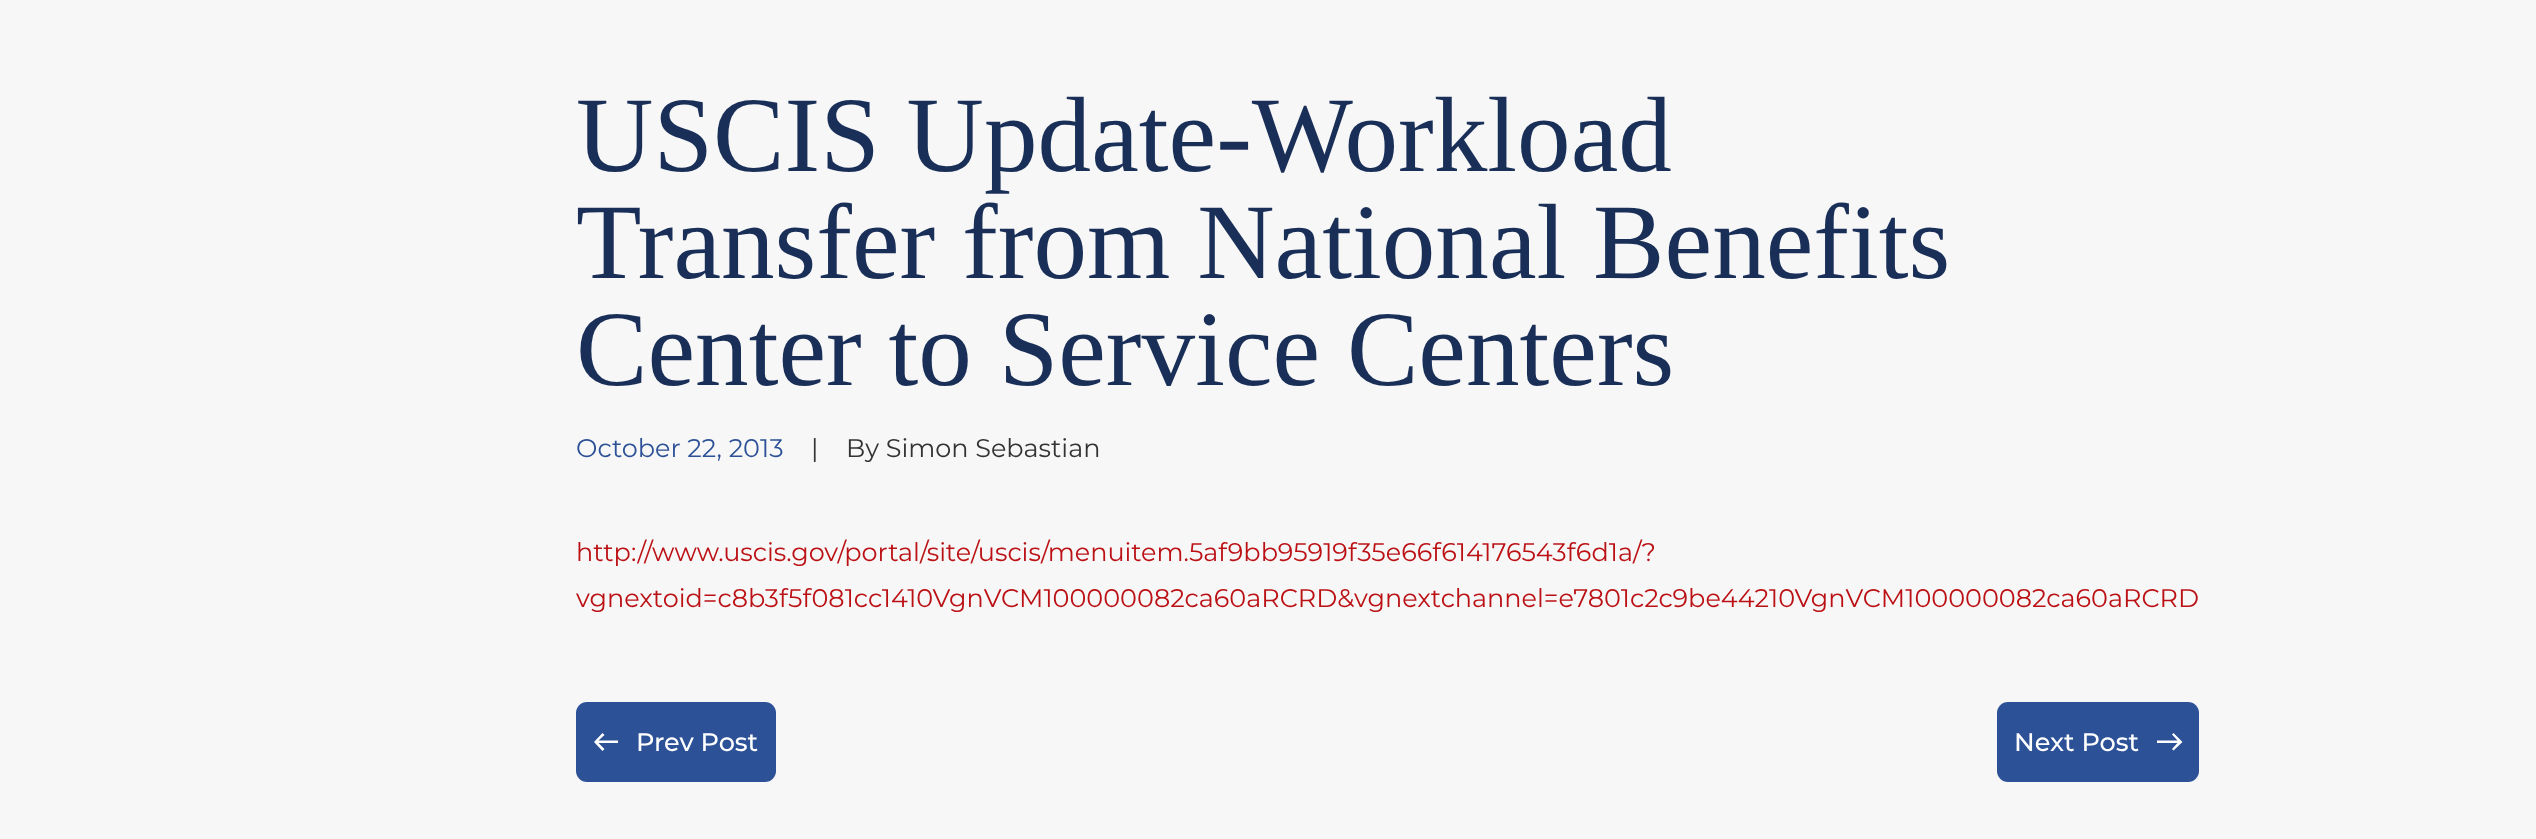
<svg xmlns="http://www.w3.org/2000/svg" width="2536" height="839">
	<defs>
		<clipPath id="clip1"><rect x="593" y="729" width="25" height="26" /></clipPath>
	</defs>
	<rect width="100%" height="100%" fill="#F7F7F7" />
	<g font-family="Liberation Serif" font-size="107.2" fill="#192F58">
		<text x="576" y="171">USCIS Update-Workload</text>
		<text x="576" y="278">Transfer from National Benefits</text>
		<text x="576" y="385">Center to Service Centers</text>
	</g>
	<text x="576" y="457" font-family="Montserrat" font-size="25.5" fill="#2C5196">October 22, 2013</text>
	<g font-family="Montserrat" font-size="25.5" fill="#333333">
		<text x="811" y="457">|</text>
		<text x="846" y="457">By Simon Sebastian</text>
	</g>
	<g font-family="Montserrat" font-size="25.5" fill="#BB1014">
		<text x="576" y="561">http://www.uscis.gov/portal/site/uscis/menuitem.5af9bb95919f35e66f614176543f6d1a/?</text>
		<text x="576" y="607">vgnextoid=c8b3f5f081cc1410VgnVCM100000082ca60aRCRD&amp;vgnextchannel=e7801c2c9be44210VgnVCM100000082ca60aRCRD</text>
	</g>
	<rect x="576" y="702" width="200" height="80" rx="11" fill="#2C5196" />
	<g clip-path="url(#clip1)">
		<path d="M602.5 751L604.5 749L598.5 743H619.5V740.5H598.5L604.5 735L602.5 733L594 742Z" fill="#FFFFFF" />
	</g>
	<text x="636" y="751" font-family="Montserrat" font-size="25.5" font-weight="500" fill="#FFFFFF">Prev Post</text>
	<rect x="1997" y="702" width="202" height="80" rx="11" fill="#2C5196" />
	<text x="2014" y="751" font-family="Montserrat" font-size="25.5" font-weight="500" fill="#FFFFFF">Next Post</text>
	<path d="M2173.5 733L2172 734.5L2177.5 740.5H2157V743H2177.5L2172 749L2173.5 750.5L2182.5 742Z" fill="#FFFFFF" />
</svg>
